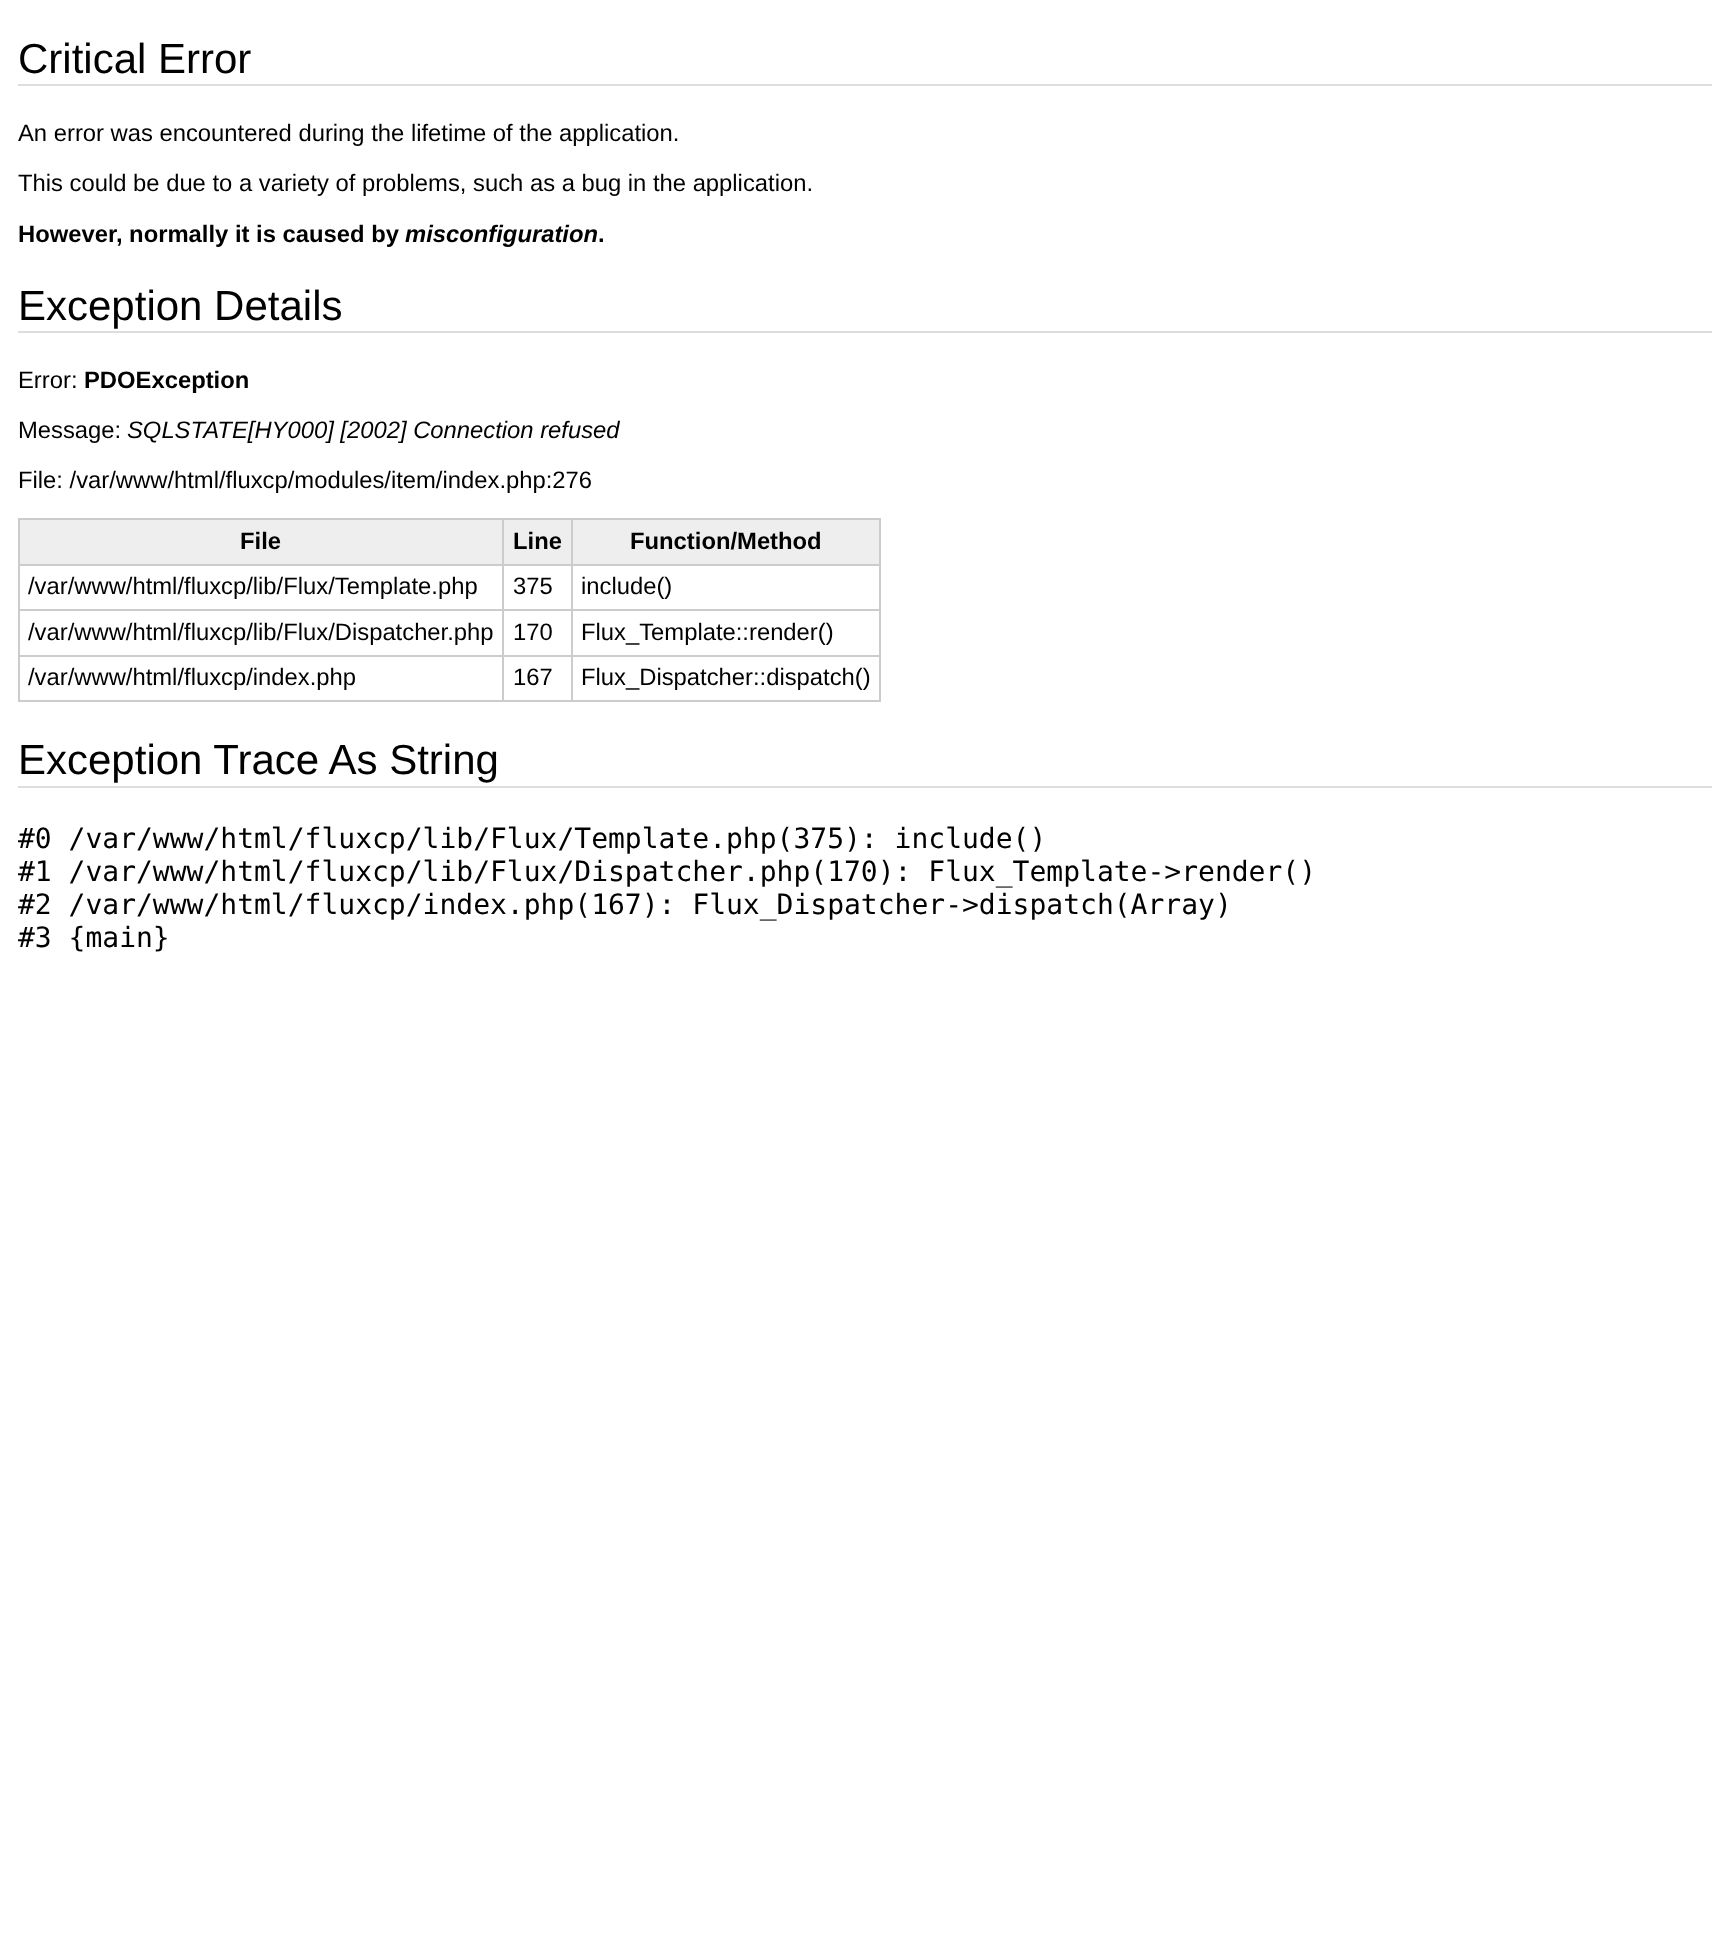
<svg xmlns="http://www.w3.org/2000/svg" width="1728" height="1944">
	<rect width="100%" height="100%" fill="#FFFFFF" />
	<rect x="18" y="84" width="1694" height="2" fill="#DDDDDD" />
	<text x="18" y="73" font-family="Liberation Sans" font-size="42" fill="#000000">Critical Error</text>
	<g font-family="Liberation Sans" font-size="23.8" fill="#000000">
		<text x="18" y="141">An error was encountered during the lifetime of the application.</text>
		<text x="18" y="191">This could be due to a variety of problems, such as a bug in the application.</text>
	</g>
	<text x="18" y="242" font-family="Liberation Sans" font-size="23.8" font-weight="700" fill="#000000">However, normally it is caused by</text>
	<text x="405" y="242" font-family="Liberation Sans" font-size="23.8" font-weight="700" font-style="italic" fill="#000000">misconfiguration</text>
	<text x="598" y="242" font-family="Liberation Sans" font-size="23.8" font-weight="700" fill="#000000">.</text>
	<rect x="18" y="331" width="1694" height="2" fill="#DDDDDD" />
	<text x="18" y="320" font-family="Liberation Sans" font-size="42" fill="#000000">Exception Details</text>
	<text x="18" y="388" font-family="Liberation Sans" font-size="23.8" fill="#000000">Error:</text>
	<text x="84" y="388" font-family="Liberation Sans" font-size="23.8" font-weight="700" fill="#000000">PDOException</text>
	<text x="18" y="438" font-family="Liberation Sans" font-size="23.8" fill="#000000">Message:</text>
	<text x="127" y="438" font-family="Liberation Sans" font-size="23.8" font-style="italic" fill="#000000">SQLSTATE[HY000] [2002] Connection refused</text>
	<text x="18" y="488" font-family="Liberation Sans" font-size="23.8" fill="#000000">File: /var/www/html/fluxcp/modules/item/index.php:276</text>
	<rect x="20" y="520" width="482" height="44" fill="#EEEEEE" />
	<rect x="571" y="518" width="309" height="2" fill="#CCCCCC" />
	<rect x="571" y="564" width="309" height="2" fill="#CCCCCC" />
	<rect x="571" y="609" width="309" height="2" fill="#CCCCCC" />
	<rect x="571" y="655" width="309" height="2" fill="#CCCCCC" />
	<rect x="879" y="655" width="2" height="47" fill="#CCCCCC" />
	<rect x="571" y="700" width="309" height="2" fill="#CCCCCC" />
	<rect x="571" y="655" width="2" height="47" fill="#CCCCCC" />
	<rect x="502" y="655" width="70" height="2" fill="#CCCCCC" />
	<rect x="571" y="609" width="2" height="47" fill="#CCCCCC" />
	<rect x="502" y="609" width="70" height="2" fill="#CCCCCC" />
	<rect x="571" y="564" width="2" height="47" fill="#CCCCCC" />
	<rect x="502" y="564" width="70" height="2" fill="#CCCCCC" />
	<rect x="571" y="518" width="2" height="47" fill="#CCCCCC" />
	<rect x="502" y="518" width="70" height="2" fill="#CCCCCC" />
	<rect x="502" y="700" width="70" height="2" fill="#CCCCCC" />
	<rect x="502" y="655" width="2" height="47" fill="#CCCCCC" />
	<rect x="18" y="655" width="486" height="2" fill="#CCCCCC" />
	<rect x="502" y="609" width="2" height="47" fill="#CCCCCC" />
	<rect x="18" y="609" width="486" height="2" fill="#CCCCCC" />
	<rect x="502" y="564" width="2" height="47" fill="#CCCCCC" />
	<rect x="18" y="564" width="486" height="2" fill="#CCCCCC" />
	<rect x="502" y="518" width="2" height="47" fill="#CCCCCC" />
	<rect x="18" y="518" width="486" height="2" fill="#CCCCCC" />
	<rect x="18" y="700" width="486" height="2" fill="#CCCCCC" />
	<rect x="18" y="655" width="2" height="47" fill="#CCCCCC" />
	<rect x="18" y="609" width="2" height="47" fill="#CCCCCC" />
	<rect x="18" y="564" width="2" height="47" fill="#CCCCCC" />
	<rect x="18" y="518" width="2" height="47" fill="#CCCCCC" />
	<text x="240" y="549" font-family="Liberation Sans" font-size="23.8" font-weight="700" fill="#000000">File</text>
	<rect x="504" y="520" width="67" height="44" fill="#EEEEEE" />
	<text x="513" y="549" font-family="Liberation Sans" font-size="23.8" font-weight="700" fill="#000000">Line</text>
	<rect x="573" y="520" width="306" height="44" fill="#EEEEEE" />
	<rect x="879" y="609" width="2" height="47" fill="#CCCCCC" />
	<rect x="879" y="564" width="2" height="47" fill="#CCCCCC" />
	<rect x="879" y="518" width="2" height="47" fill="#CCCCCC" />
	<text x="630" y="549" font-family="Liberation Sans" font-size="23.8" font-weight="700" fill="#000000">Function/Method</text>
	<g font-family="Liberation Sans" font-size="23.8" fill="#000000">
		<text x="28" y="594">/var/www/html/fluxcp/lib/Flux/Template.php</text>
		<text x="513" y="594">375</text>
		<text x="581" y="594">include()</text>
		<text x="28" y="640">/var/www/html/fluxcp/lib/Flux/Dispatcher.php</text>
		<text x="513" y="640">170</text>
		<text x="581" y="640">Flux_Template::render()</text>
		<text x="28" y="685">/var/www/html/fluxcp/index.php</text>
		<text x="513" y="685">167</text>
		<text x="581" y="685">Flux_Dispatcher::dispatch()</text>
	</g>
	<rect x="18" y="786" width="1694" height="2" fill="#DDDDDD" />
	<text x="18" y="774" font-family="Liberation Sans" font-size="42" fill="#000000">Exception Trace As String</text>
	<g font-family="DejaVu Sans Mono" font-size="28" fill="#000000">
		<text x="18" y="848">#0 /var/www/html/fluxcp/lib/Flux/Template.php(375): include()</text>
		<text x="18" y="881">#1 /var/www/html/fluxcp/lib/Flux/Dispatcher.php(170): Flux_Template-&gt;render()</text>
		<text x="18" y="914">#2 /var/www/html/fluxcp/index.php(167): Flux_Dispatcher-&gt;dispatch(Array)</text>
		<text x="18" y="947">#3 {main}</text>
	</g>
</svg>
